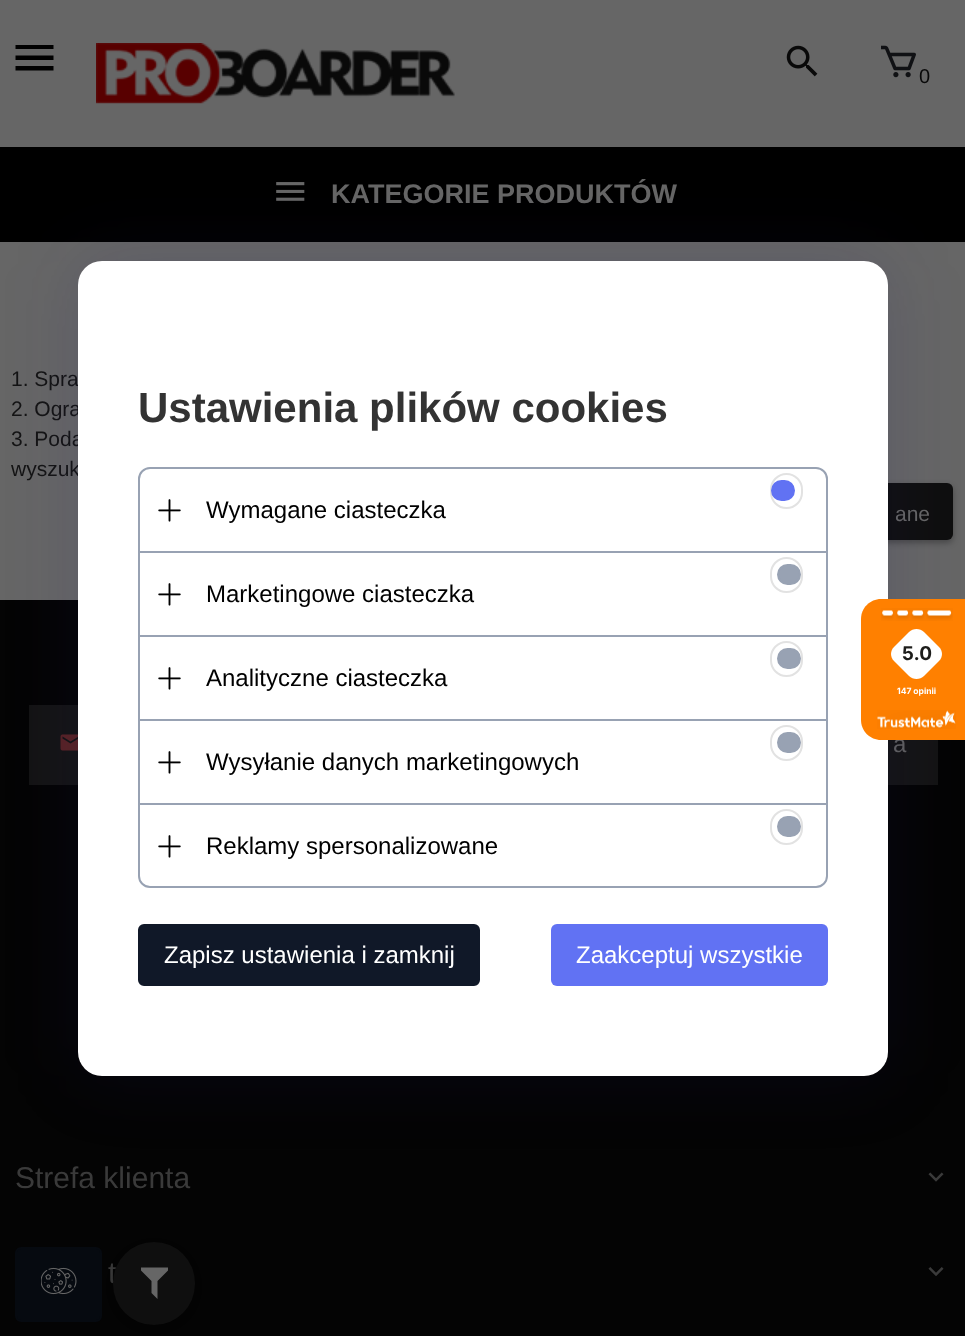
<svg xmlns="http://www.w3.org/2000/svg" width="965" height="1336">
	<rect width="100%" height="100%" fill="#666666" />
	<path d="M15.5 45H53.5V49H15.5ZM15.5 55.5H53.5V60H15.5ZM15.5 66H53.5V70.5H15.5Z" fill="#000000" />
	<image x="96" y="43" width="359" height="61" href="assets/img1.png" />
	<image x="786" y="45" width="32" height="32" href="assets/img2.png" />
	<image x="881" y="45" width="35" height="33" href="assets/img3.png" />
	<text x="919" y="83" font-family="Liberation Sans" font-size="20" fill="#090909">0</text>
	<rect x="0" y="147" width="965" height="95" fill="#000000" />
	<image x="276" y="182" width="29" height="19" href="assets/img4.png" />
	<text x="331" y="203" font-family="Liberation Sans" font-size="27" font-weight="700" fill="#666666">KATEGORIE PRODUKTÓW</text>
	<g font-family="Liberation Sans" font-size="21" fill="#141414">
		<text x="11" y="386">1. Spra</text>
		<text x="11" y="416">2. Ogra</text>
		<text x="11" y="446">3. Poda</text>
		<text x="11" y="476">wyszuk</text>
	</g>
	<rect x="674" y="486" width="279" height="57" rx="6" fill="#000000" fill-opacity="0.3" filter="blur(3px)" />
	<rect x="674" y="483" width="279" height="57" rx="6" fill="#0F0F0F" />
	<text x="895" y="521" font-family="Liberation Sans" font-size="21" fill="#666666">ane</text>
	<rect x="0" y="600" width="965" height="736" fill="#040404" />
	<rect x="29" y="705" width="49" height="80" fill="#141414" />
	<image x="60" y="734" width="18" height="17" href="assets/img5.png" />
	<rect x="888" y="740" width="50" height="45" fill="#141414" />
	<text x="893" y="752" font-family="Liberation Sans" font-size="24" fill="#606060">a</text>
	<text x="15" y="1188" font-family="Liberation Sans" font-size="30" fill="#3A3A3A">Strefa klienta</text>
	<image x="928" y="1172" width="16" height="10" href="assets/img6.png" />
	<text x="108" y="1283" font-family="Liberation Sans" font-size="30" fill="#3A3A3A">t</text>
	<image x="928" y="1267" width="16" height="9" href="assets/img7.png" />
	<rect x="78" y="261" width="810" height="815" rx="24" fill="#211A69" fill-opacity="0.15" filter="blur(36px)" />
	<rect x="78" y="261" width="810" height="815" rx="24" fill="#FFFFFF" />
	<text x="138" y="422" font-family="Liberation Sans" font-size="42" font-weight="700" fill="#333333">Ustawienia plików cookies</text>
	<rect x="139" y="468" width="688" height="419" rx="11" fill="none" stroke="#98A2B3" stroke-width="2" />
	<rect x="771" y="474" width="31" height="34" rx="15.5" fill="none" stroke="#E2E2E2" stroke-width="2" />
	<rect x="772" y="481" width="22" height="19" rx="9.5" fill="#6172F3" stroke="#6172F3" stroke-width="2" />
	<image x="158" y="499" width="23" height="23" href="assets/img8.png" />
	<text x="206" y="518" font-family="Liberation Sans" font-size="24" fill="#000000">Wymagane ciasteczka</text>
	<rect x="140" y="551" width="687" height="2" fill="#98A2B3" />
	<rect x="771" y="558" width="31" height="34" rx="15.5" fill="none" stroke="#E2E2E2" stroke-width="2" />
	<rect x="778" y="565" width="22" height="19" rx="9.5" fill="#98A2B3" stroke="#98A2B3" stroke-width="2" />
	<image x="158" y="583" width="23" height="23" href="assets/img8.png" />
	<text x="206" y="602" font-family="Liberation Sans" font-size="24" fill="#000000">Marketingowe ciasteczka</text>
	<rect x="140" y="635" width="687" height="2" fill="#98A2B3" />
	<rect x="771" y="642" width="31" height="34" rx="15.5" fill="none" stroke="#E2E2E2" stroke-width="2" />
	<rect x="778" y="649" width="22" height="19" rx="9.5" fill="#98A2B3" stroke="#98A2B3" stroke-width="2" />
	<image x="158" y="667" width="23" height="23" href="assets/img8.png" />
	<text x="206" y="686" font-family="Liberation Sans" font-size="24" fill="#000000">Analityczne ciasteczka</text>
	<rect x="140" y="719" width="687" height="2" fill="#98A2B3" />
	<rect x="771" y="726" width="31" height="34" rx="15.5" fill="none" stroke="#E2E2E2" stroke-width="2" />
	<rect x="778" y="733" width="22" height="19" rx="9.5" fill="#98A2B3" stroke="#98A2B3" stroke-width="2" />
	<image x="158" y="751" width="23" height="23" href="assets/img8.png" />
	<text x="206" y="770" font-family="Liberation Sans" font-size="24" fill="#000000">Wysyłanie danych marketingowych</text>
	<rect x="140" y="803" width="687" height="2" fill="#98A2B3" />
	<rect x="771" y="810" width="31" height="34" rx="15.5" fill="none" stroke="#E2E2E2" stroke-width="2" />
	<rect x="778" y="817" width="22" height="19" rx="9.5" fill="#98A2B3" stroke="#98A2B3" stroke-width="2" />
	<image x="158" y="835" width="23" height="23" href="assets/img8.png" />
	<text x="206" y="854" font-family="Liberation Sans" font-size="24" fill="#000000">Reklamy spersonalizowane</text>
	<rect x="139" y="925" width="340" height="60" rx="5" fill="#101828" stroke="#101828" stroke-width="2" />
	<text x="164" y="963" font-family="Liberation Sans" font-size="24" fill="#FFFFFF">Zapisz ustawienia i zamknij</text>
	<rect x="551" y="924" width="277" height="62" rx="6" fill="#6172F3" />
	<text x="576" y="963" font-family="Liberation Sans" font-size="24" fill="#FFFFFF">Zaakceptuj wszystkie</text>
	<rect x="16" y="1248" width="85" height="73" rx="5" fill="#060A10" stroke="#060A10" stroke-width="2" />
	<image x="41" y="1267" width="36" height="28" href="assets/img9.png" />
	<path d="M881 599H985V740H881C870 740 861 731 861 720V619C861 608 870 599 881 599Z" fill="#FF8000" />
	<image x="881" y="608" width="72" height="13" href="assets/img10.png" />
	<path d="M924 632L939 647C943 651 943 657 939 661L924 676C920 680 913 680 909 676L894 661C890 657 890 651 894 647L909 632C913 628 920 628 924 632Z" fill="#FFFFFF" />
	<text x="902" y="660" font-family="Inter" font-size="19" font-weight="700" fill="#1D1D1B">5.0</text>
	<text x="897" y="694" font-family="Inter" font-size="8.5" font-weight="700" fill="#FFFFFF">147 opinii</text>
	<image x="877" y="710" width="79" height="19" href="assets/img11.png" />
	<rect x="113" y="1245" width="82" height="83" rx="41" fill="#000000" fill-opacity="0.3" filter="blur(3px)" />
	<rect x="113" y="1242" width="82" height="83" rx="41" fill="#0F0F0F" />
	<path d="M141 1267.5H168V1270.5L157.5 1281V1299L151.5 1293V1281L141 1270.5Z" fill="#666666" />
</svg>
